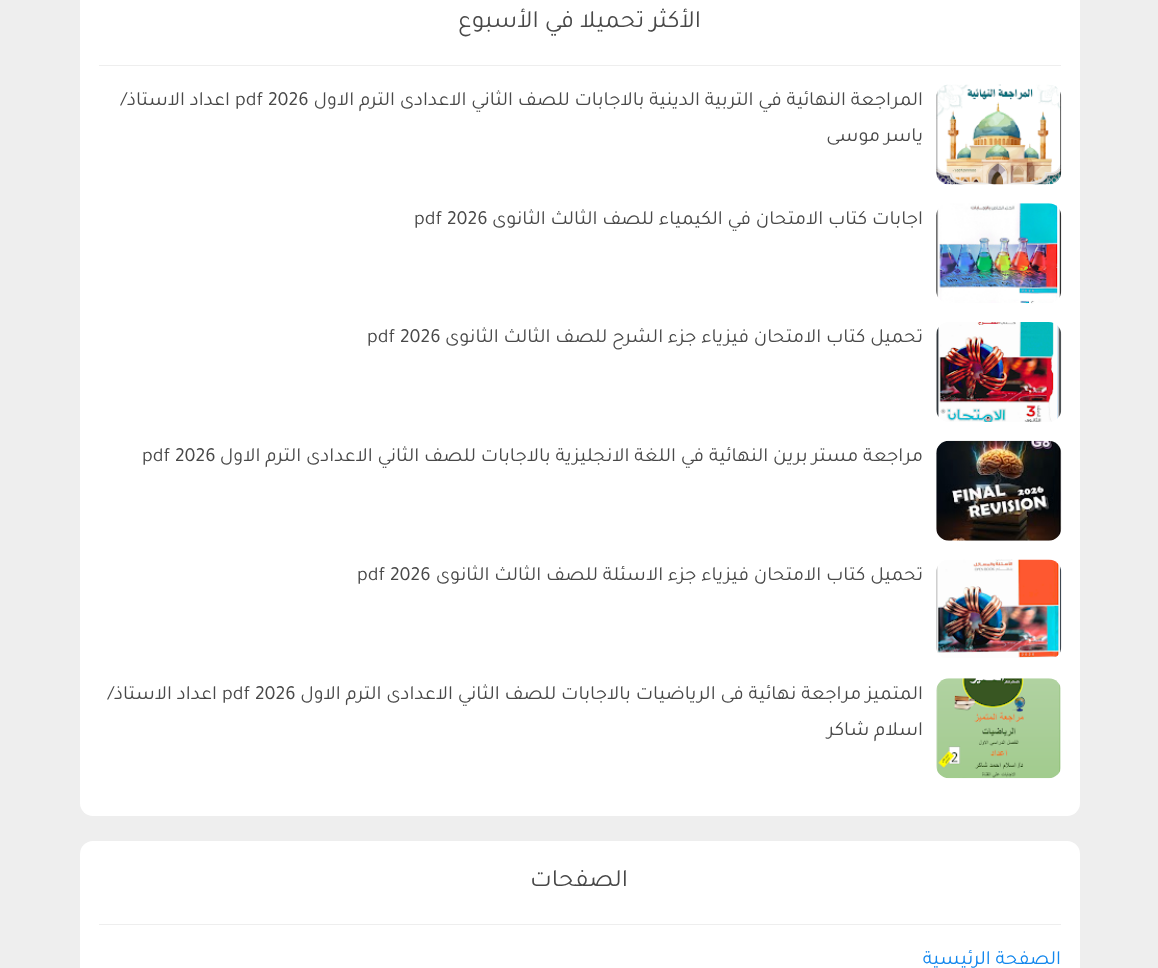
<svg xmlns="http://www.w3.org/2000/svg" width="1158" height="968">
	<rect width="100%" height="100%" fill="#EEEEEE" />
	<rect x="80" y="-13" width="1000" height="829" rx="13" fill="#FFFFFF" />
	<rect x="99" y="65" width="962" height="1" fill="#EEEEEE" />
	<text x="701" y="27" font-family="Tajawal" font-size="25" direction="rtl" fill="#484848">الأكثر تحميلا في الأسبوع</text>
	<image x="936" y="84" width="126" height="101" href="assets/img1.png" />
	<text x="923" y="105" font-family="Tajawal" font-size="20" direction="rtl" fill="#484848">المراجعة النهائية في التربية الدينية بالاجابات للصف الثاني الاعدادى الترم الاول</text>
	<text x="235" y="105" font-family="Tajawal" font-size="20" fill="#484848">pdf 2026</text>
	<g font-family="Tajawal" font-size="20" direction="rtl" fill="#484848">
		<text x="230" y="105">اعداد الاستاذ/</text>
		<text x="923" y="141">ياسر موسى</text>
	</g>
	<image x="936" y="203" width="126" height="101" href="assets/img2.png" />
	<text x="923" y="224" font-family="Tajawal" font-size="20" direction="rtl" fill="#484848">اجابات كتاب الامتحان في الكيمياء للصف الثالث الثانوى</text>
	<text x="414" y="224" font-family="Tajawal" font-size="20" fill="#484848">pdf 2026</text>
	<image x="936" y="322" width="126" height="100" href="assets/img3.png" />
	<text x="923" y="342" font-family="Tajawal" font-size="20" direction="rtl" fill="#484848">تحميل كتاب الامتحان فيزياء جزء الشرح للصف الثالث الثانوى</text>
	<text x="367" y="342" font-family="Tajawal" font-size="20" fill="#484848">pdf 2026</text>
	<image x="936" y="440" width="126" height="101" href="assets/img4.png" />
	<text x="923" y="461" font-family="Tajawal" font-size="20" direction="rtl" fill="#484848">مراجعة مستر برين النهائية في اللغة الانجليزية بالاجابات للصف الثاني الاعدادى الترم الاول</text>
	<text x="142" y="461" font-family="Tajawal" font-size="20" fill="#484848">pdf 2026</text>
	<image x="936" y="559" width="126" height="99" href="assets/img5.png" />
	<text x="923" y="580" font-family="Tajawal" font-size="20" direction="rtl" fill="#484848">تحميل كتاب الامتحان فيزياء جزء الاسئلة للصف الثالث الثانوى</text>
	<text x="357" y="580" font-family="Tajawal" font-size="20" fill="#484848">pdf 2026</text>
	<image x="936" y="678" width="125" height="101" href="assets/img6.png" />
	<text x="923" y="699" font-family="Tajawal" font-size="20" direction="rtl" fill="#484848">المتميز مراجعة نهائية فى الرياضيات بالاجابات للصف الثاني الاعدادى الترم الاول</text>
	<text x="222" y="699" font-family="Tajawal" font-size="20" fill="#484848">pdf 2026</text>
	<g font-family="Tajawal" font-size="20" direction="rtl" fill="#484848">
		<text x="217" y="699">اعداد الاستاذ/</text>
		<text x="923" y="735">اسلام شاكر</text>
	</g>
	<rect x="80" y="841" width="1000" height="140" rx="13" fill="#FFFFFF" />
	<rect x="99" y="924" width="962" height="1" fill="#EEEEEE" />
	<text x="628" y="886" font-family="Tajawal" font-size="25" direction="rtl" fill="#484848">الصفحات</text>
	<text x="1061" y="964" font-family="Tajawal" font-size="20" direction="rtl" fill="#1387ED">الصفحة الرئيسية</text>
</svg>
